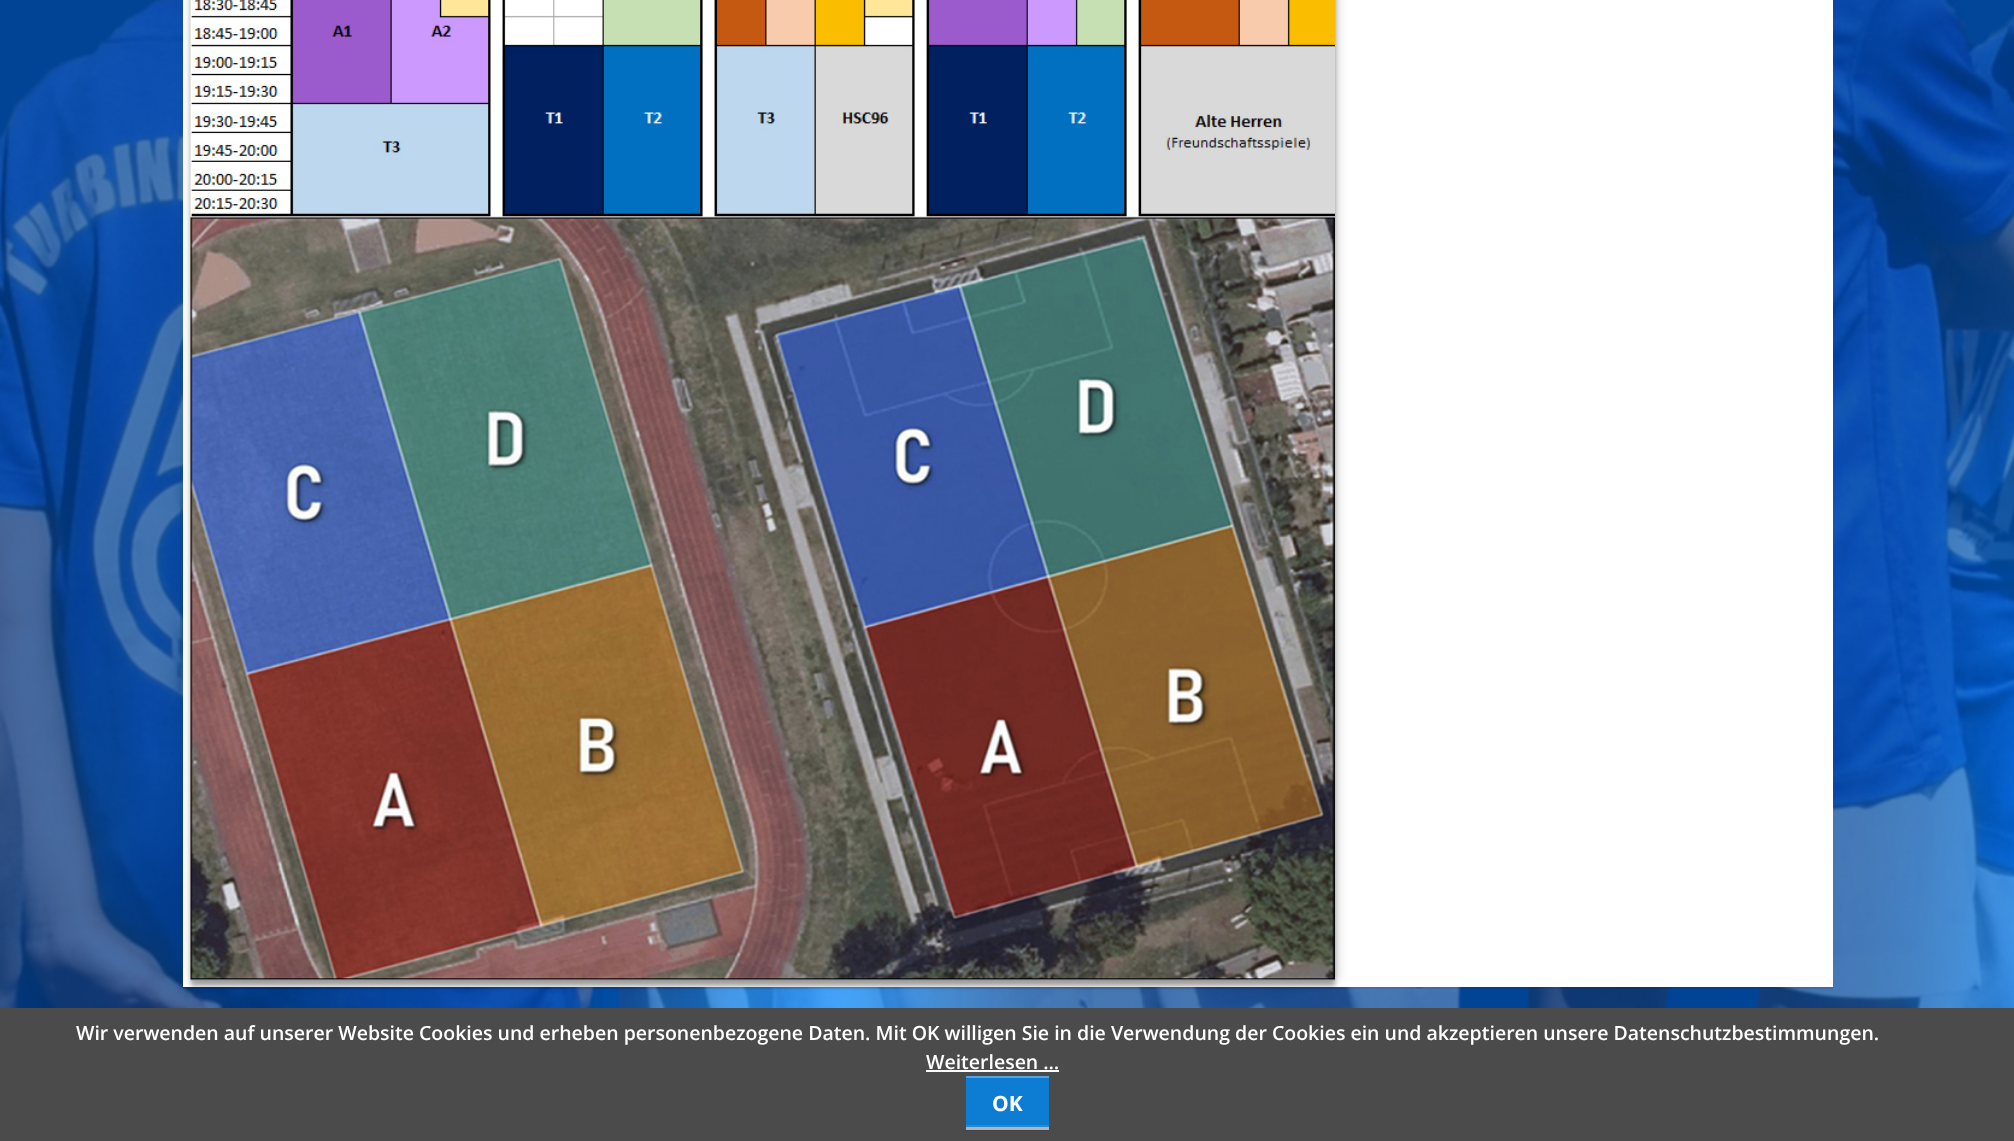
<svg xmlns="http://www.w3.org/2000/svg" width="2014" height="1141">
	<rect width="100%" height="100%" fill="#FFFFFF" />
	<image x="0" y="0" width="2014" height="1008" href="assets/img1.png" />
	<rect x="183" y="0" width="1650" height="987" fill="#FFFFFF" />
	<rect x="183" y="987" width="1650" height="2" fill="#000000" fill-opacity="0.07" />
	<rect x="192" y="-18" width="1145" height="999" fill="#000000" fill-opacity="0.2" filter="blur(6px)" />
	<rect x="191" y="-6" width="1144" height="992" fill="#000000" fill-opacity="0.3" filter="blur(2px)" />
	<image x="190" y="0" width="1145" height="981" href="assets/img2.png" />
	<rect x="0" y="1008" width="2014" height="133" fill="#4B4B4B" />
	<g font-family="Open Sans" font-size="19.5" font-weight="600" fill="#FFFFFF">
		<text x="76" y="1040">Wir verwenden auf unserer Website Cookies und erheben personenbezogene Daten. Mit OK willigen Sie in die Verwendung der Cookies ein und akzeptieren unsere Datenschutzbestimmungen.</text>
		<text x="926" y="1069">Weiterlesen …</text>
	</g>
	<rect x="926" y="1070" width="133" height="2" fill="#FFFFFF" />
	<path d="M966 1130V1131H1049V1077H1048V1130Z" fill="#444444" />
	<rect x="966" y="1078" width="83" height="47" fill="#0C7DD3" />
	<rect x="966" y="1125" width="83" height="2" fill="#248AD7" />
	<rect x="966" y="1127" width="83" height="3" fill="#B3B3BD" />
	<rect x="966" y="1076" width="83" height="2" fill="#55A4E0" />
	<text x="992" y="1111" font-family="Open Sans" font-size="21" font-weight="700" fill="#FFFFFF">OK</text>
</svg>
